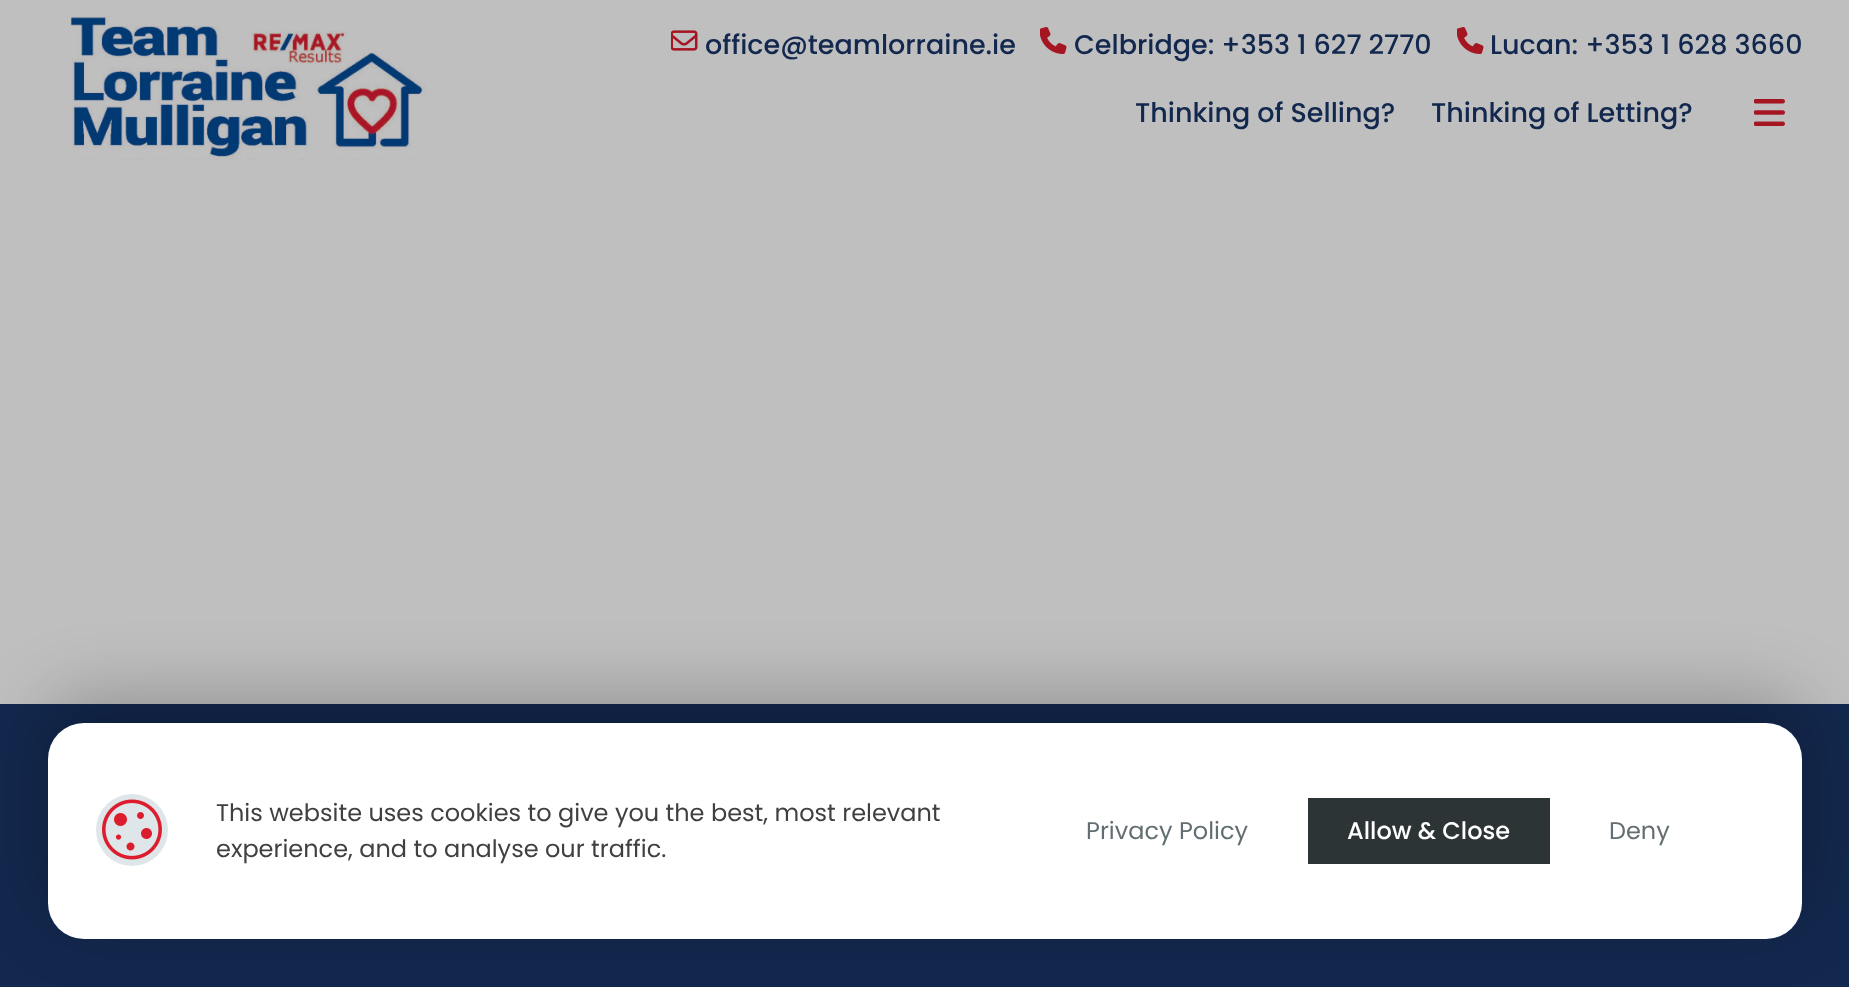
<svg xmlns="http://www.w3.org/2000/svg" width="1849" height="987">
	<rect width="100%" height="100%" fill="#FFFFFF" />
	<image x="671" y="30" width="27" height="21" href="assets/img1.png" />
	<text x="705" y="54" font-family="Poppins" font-size="27" font-weight="500" fill="#1A3668">office@teamlorraine.ie</text>
	<image x="1040" y="27" width="27" height="27" href="assets/img2.png" />
	<text x="1074" y="54" font-family="Poppins" font-size="27" font-weight="500" fill="#1A3668">Celbridge: +353 1 627 2770</text>
	<image x="1457" y="27" width="27" height="27" href="assets/img2.png" />
	<text x="1490" y="54" font-family="Poppins" font-size="27" font-weight="500" fill="#1A3668">Lucan: +353 1 628 3660</text>
	<image x="70" y="15" width="356" height="146" href="assets/img3.png" />
	<g font-family="Poppins" font-size="27" font-weight="500" fill="#1A3668">
		<text x="1135" y="122">Thinking of Selling?</text>
		<text x="1431" y="122">Thinking of Letting?</text>
	</g>
	<image x="1754" y="99" width="31" height="27" href="assets/img4.png" />
	<rect x="0" y="704" width="1849" height="283" fill="#1A3668" />
	<rect x="-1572" y="-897" width="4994" height="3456" rx="1656" fill="none" stroke="#000000" stroke-opacity="0.25" stroke-width="3240" />
	<rect x="48" y="699" width="1754" height="216" rx="36" fill="#000000" fill-opacity="0.25" filter="blur(36px)" />
	<rect x="48" y="723" width="1754" height="216" rx="36" fill="#FFFFFF" />
	<circle cx="132" cy="830" r="36" fill="#DFE6E9" />
	<image x="102" y="799" width="60" height="61" href="assets/img5.png" />
	<g font-family="Poppins" font-size="24" fill="#404041">
		<text x="216" y="821">This website uses cookies to give you the best, most relevant</text>
		<text x="216" y="857">experience, and to analyse our traffic.</text>
	</g>
	<text x="1086" y="839" font-family="Poppins" font-size="24" fill="#636E72">Privacy Policy</text>
	<rect x="1308" y="798" width="242" height="66" fill="#2D3436" />
	<text x="1347" y="839" font-family="Poppins" font-size="24" font-weight="500" fill="#FFFFFF">Allow &amp; Close</text>
	<text x="1609" y="839" font-family="Poppins" font-size="24" fill="#636E72">Deny</text>
</svg>
